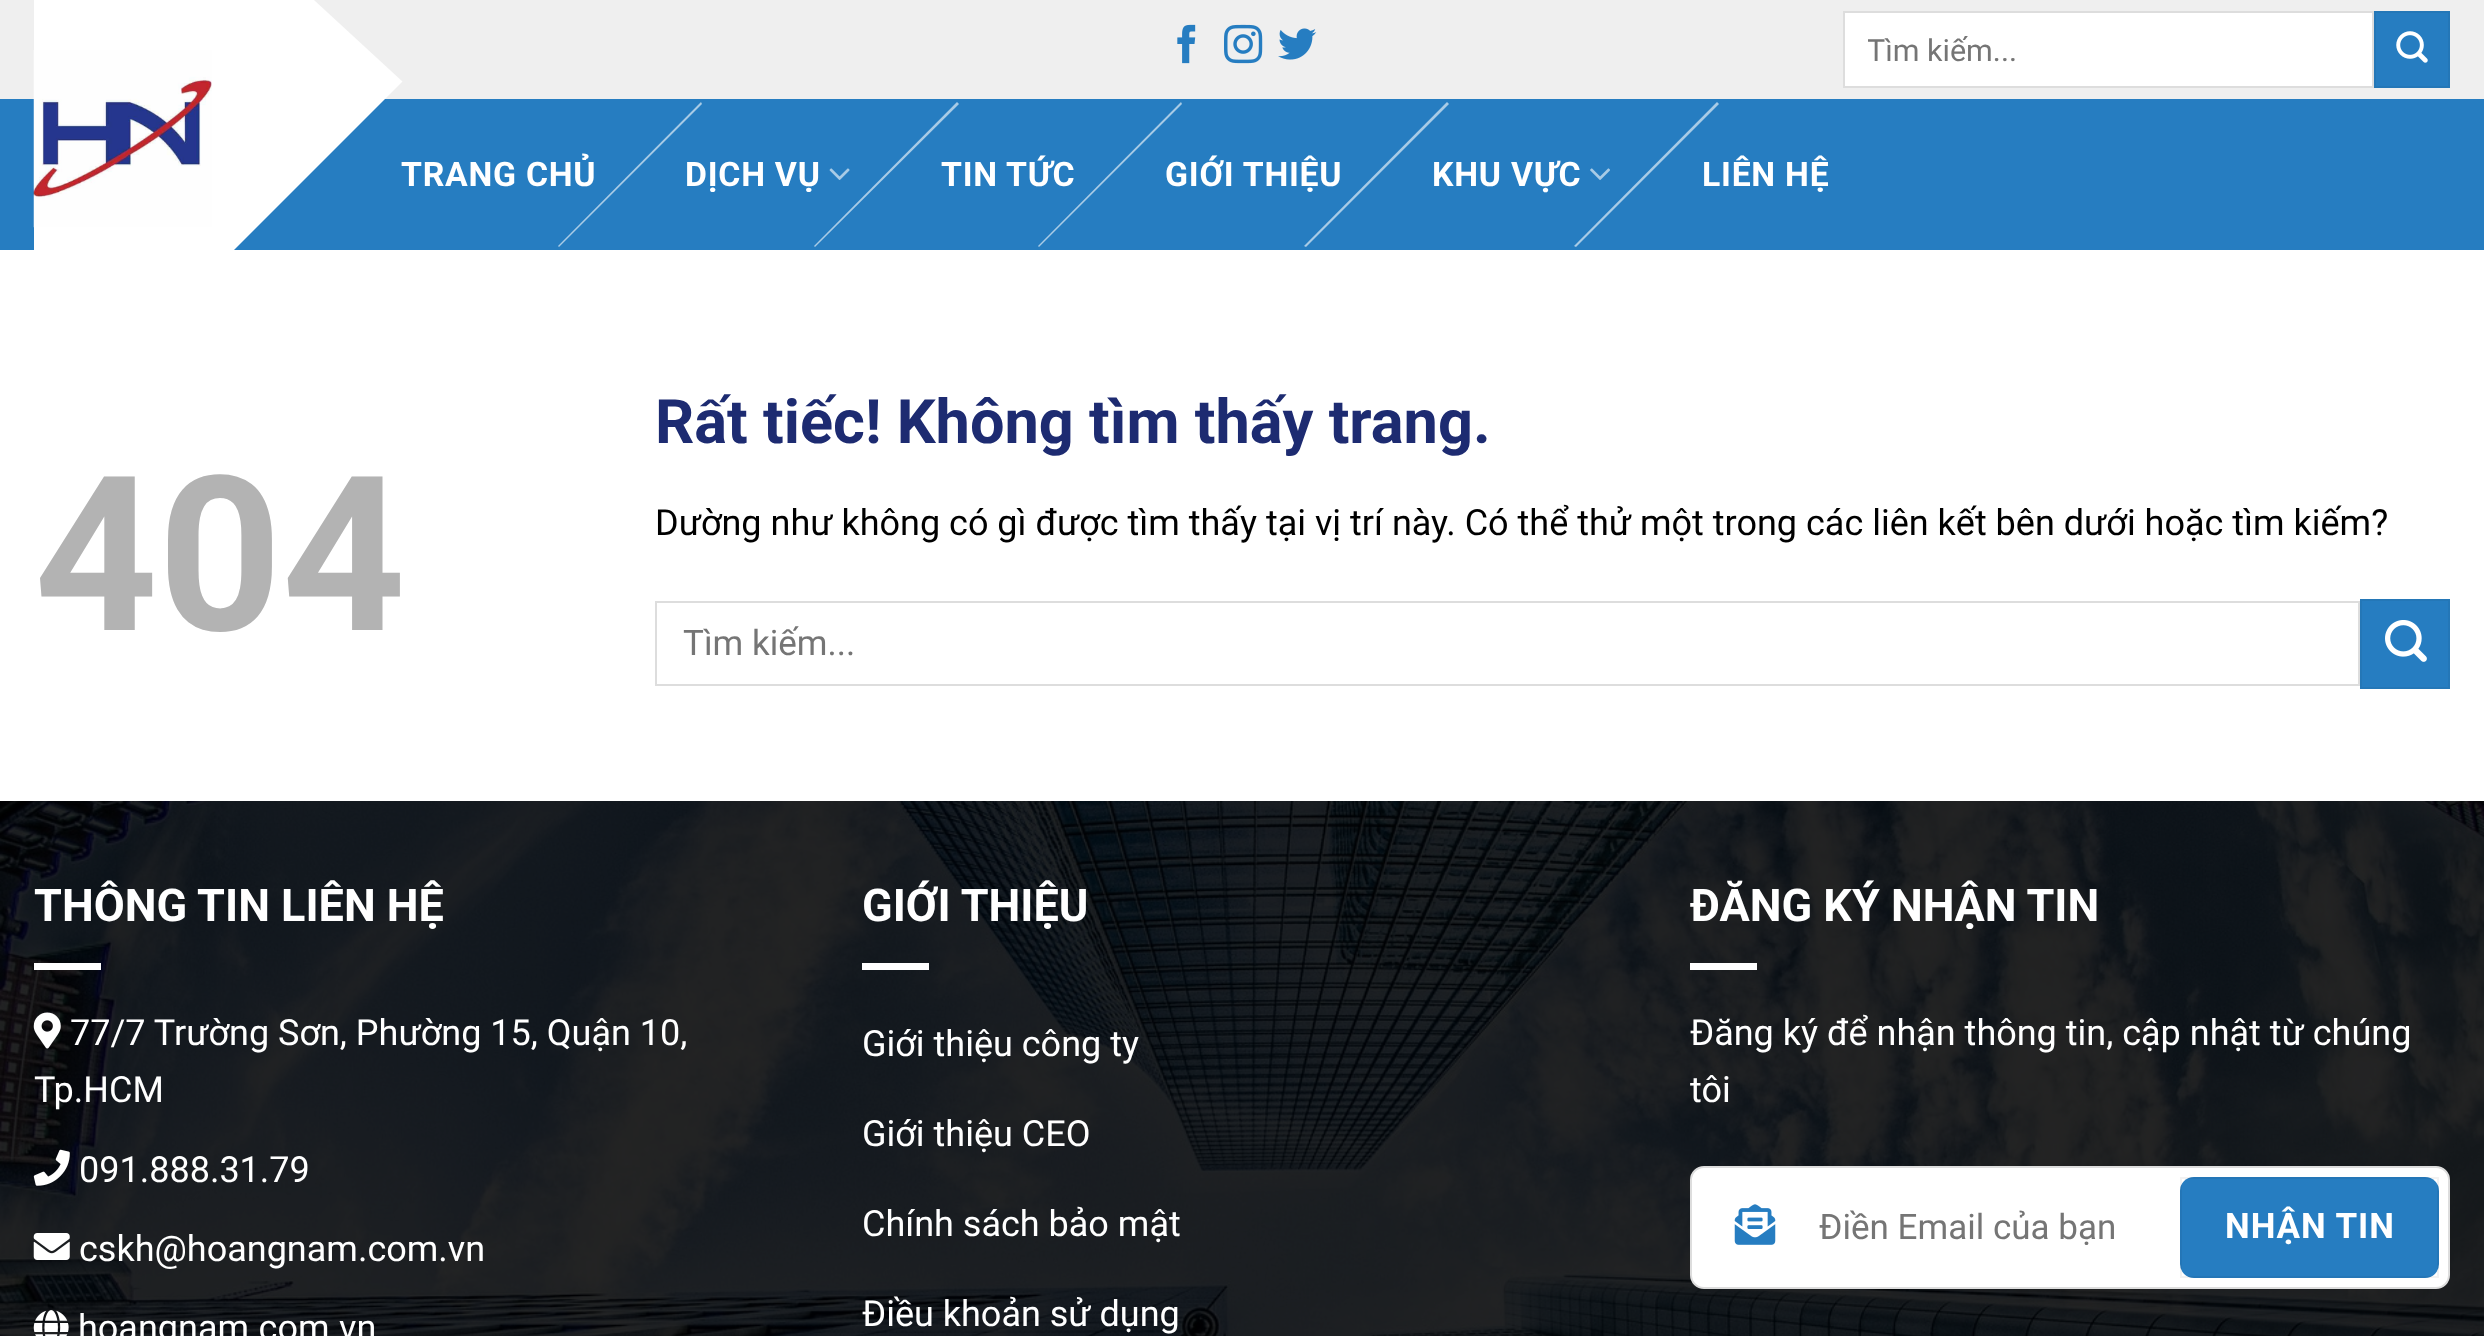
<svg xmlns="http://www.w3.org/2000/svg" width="2484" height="1336">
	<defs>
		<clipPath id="clip1"><rect x="1868" y="32" width="472" height="36" /></clipPath>
	</defs>
	<rect width="100%" height="100%" fill="#FFFFFF" />
	<rect x="0" y="0" width="2484" height="99" fill="#EFEFEF" />
	<image x="1177" y="24" width="19" height="40" href="assets/img1.png" />
	<image x="1224" y="24" width="39" height="40" href="assets/img2.png" />
	<image x="1278" y="28" width="39" height="32" href="assets/img3.png" />
	<rect x="1844" y="12" width="529" height="75" fill="#FFFFFF" stroke="#DDDDDD" stroke-width="2" />
	<g clip-path="url(#clip1)">
		<text x="1867" y="61" font-family="Roboto" font-size="30.5" fill="#757575">Tìm kiếm...</text>
	</g>
	<rect x="2375" y="12" width="74" height="75" fill="#267DC1" stroke="#2477B7" stroke-width="2" />
	<image x="2396" y="31" width="32" height="32" href="assets/img4.png" />
	<rect x="0" y="99" width="2484" height="151" fill="#267DC1" />
	<path d="M34 0V270H214L484 0Z" fill="#FFFFFF" />
	<path d="M403 82L492 0H314Z" fill="#EFEFEF" />
	<image x="33" y="50" width="179" height="178" href="assets/img5.png" />
	<path d="M701 102L702 104L559 247L558 246Z" fill="#A8CBE6" />
	<text x="401" y="186" font-family="Roboto" font-size="33.75" font-weight="700" letter-spacing="0.75" fill="#FFFFFF">TRANG CHỦ</text>
	<path d="M957 102L959 104L815 247L814 246Z" fill="#A8CBE6" />
	<text x="685" y="186" font-family="Roboto" font-size="33.75" font-weight="700" letter-spacing="0.75" fill="#FFFFFF">DỊCH VỤ</text>
	<image x="829" y="168" width="21" height="12" href="assets/img6.png" />
	<path d="M1181 102L1182 104L1039 247L1038 246Z" fill="#A8CBE6" />
	<text x="941" y="186" font-family="Roboto" font-size="33.75" font-weight="700" letter-spacing="0.75" fill="#FFFFFF">TIN TỨC</text>
	<path d="M1447 102L1449 104L1306 247L1304 246Z" fill="#A8CBE6" />
	<text x="1165" y="186" font-family="Roboto" font-size="33.75" font-weight="700" letter-spacing="0.75" fill="#FFFFFF">GIỚI THIỆU</text>
	<path d="M1717 102L1719 104L1576 247L1574 246Z" fill="#A8CBE6" />
	<text x="1432" y="186" font-family="Roboto" font-size="33.75" font-weight="700" letter-spacing="0.75" fill="#FFFFFF">KHU VỰC</text>
	<image x="1590" y="168" width="20" height="12" href="assets/img7.png" />
	<text x="1702" y="186" font-family="Roboto" font-size="33.75" font-weight="700" letter-spacing="0.75" fill="#FFFFFF">LIÊN HỆ</text>
	<text x="34" y="630" font-family="Roboto" font-size="216" font-weight="700" fill="#B3B3B3">404</text>
	<text x="655" y="443" font-family="Roboto" font-size="61.25" font-weight="700" fill="#1D2B71">Rất tiếc! Không tìm thấy trang.</text>
	<text x="655" y="535" font-family="Roboto" font-size="36" fill="#000000">Dường như không có gì được tìm thấy tại vị trí này. Có thể thử một trong các liên kết bên dưới hoặc tìm kiếm?</text>
	<rect x="656" y="602" width="1703" height="83" fill="none" stroke="#DDDDDD" stroke-width="2" />
	<text x="683" y="655" font-family="Roboto" font-size="35" fill="#757575">Tìm kiếm...</text>
	<rect x="2361" y="600" width="88" height="88" fill="#267DC1" stroke="#2477B7" stroke-width="2" />
	<image x="2385" y="620" width="42" height="42" href="assets/img8.png" />
	<image x="0" y="801" width="2484" height="535" href="assets/img9.png" />
	<text x="34" y="921" font-family="Roboto" font-size="45" font-weight="700" fill="#FFFFFF">THÔNG TIN LIÊN HỆ</text>
	<rect x="34" y="963" width="67" height="7" fill="#FFFFFF" />
	<image x="33" y="1012" width="28" height="37" href="assets/img10.png" />
	<g font-family="Roboto" font-size="36" fill="#FFFFFF">
		<text x="70" y="1045">77/7 Trường Sơn, Phường 15, Quận 10,</text>
		<text x="34" y="1102">Tp.HCM</text>
	</g>
	<image x="33" y="1149" width="37" height="37" href="assets/img11.png" />
	<text x="79" y="1182" font-family="Roboto" font-size="36" fill="#FFFFFF">091.888.31.79</text>
	<image x="33" y="1233" width="37" height="27" href="assets/img12.png" />
	<text x="79" y="1261" font-family="Roboto" font-size="36" fill="#FFFFFF">cskh@hoangnam.com.vn</text>
	<image x="33" y="1310" width="36" height="26" href="assets/img13.png" />
	<text x="78" y="1340" font-family="Roboto" font-size="36" fill="#FFFFFF">hoangnam.com.vn</text>
	<text x="862" y="921" font-family="Roboto" font-size="45" font-weight="700" fill="#FFFFFF">GIỚI THIỆU</text>
	<rect x="862" y="963" width="67" height="7" fill="#FFFFFF" />
	<g font-family="Roboto" font-size="36" fill="#FFFFFF">
		<text x="862" y="1056">Giới thiệu công ty</text>
		<text x="862" y="1146">Giới thiệu CEO</text>
		<text x="862" y="1236">Chính sách bảo mật</text>
		<text x="862" y="1326">Điều khoản sử dụng</text>
	</g>
	<text x="1690" y="921" font-family="Roboto" font-size="45" font-weight="700" fill="#FFFFFF">ĐĂNG KÝ NHẬN TIN</text>
	<rect x="1690" y="963" width="67" height="7" fill="#FFFFFF" />
	<g font-family="Roboto" font-size="36" fill="#FFFFFF">
		<text x="1690" y="1045">Đăng ký để nhận thông tin, cập nhật từ chúng</text>
		<text x="1690" y="1102">tôi</text>
	</g>
	<rect x="1691" y="1167" width="758" height="121" rx="13" fill="#FFFFFF" stroke="#DDDDDD" stroke-width="2" />
	<image x="1734" y="1204" width="42" height="41" href="assets/img14.png" />
	<text x="1819" y="1239" font-family="Roboto" font-size="35" fill="#757575">Điền Email của bạn</text>
	<rect x="2180" y="1177" width="259" height="101" rx="14" fill="#267DC1" />
	<rect x="2181" y="1178" width="257" height="99" fill="none" stroke="#000000" stroke-opacity="0.05" stroke-width="2" />
	<text x="2225" y="1238" font-family="Roboto" font-size="35" font-weight="700" letter-spacing="1" fill="#FFFFFF">NHẬN TIN</text>
</svg>
